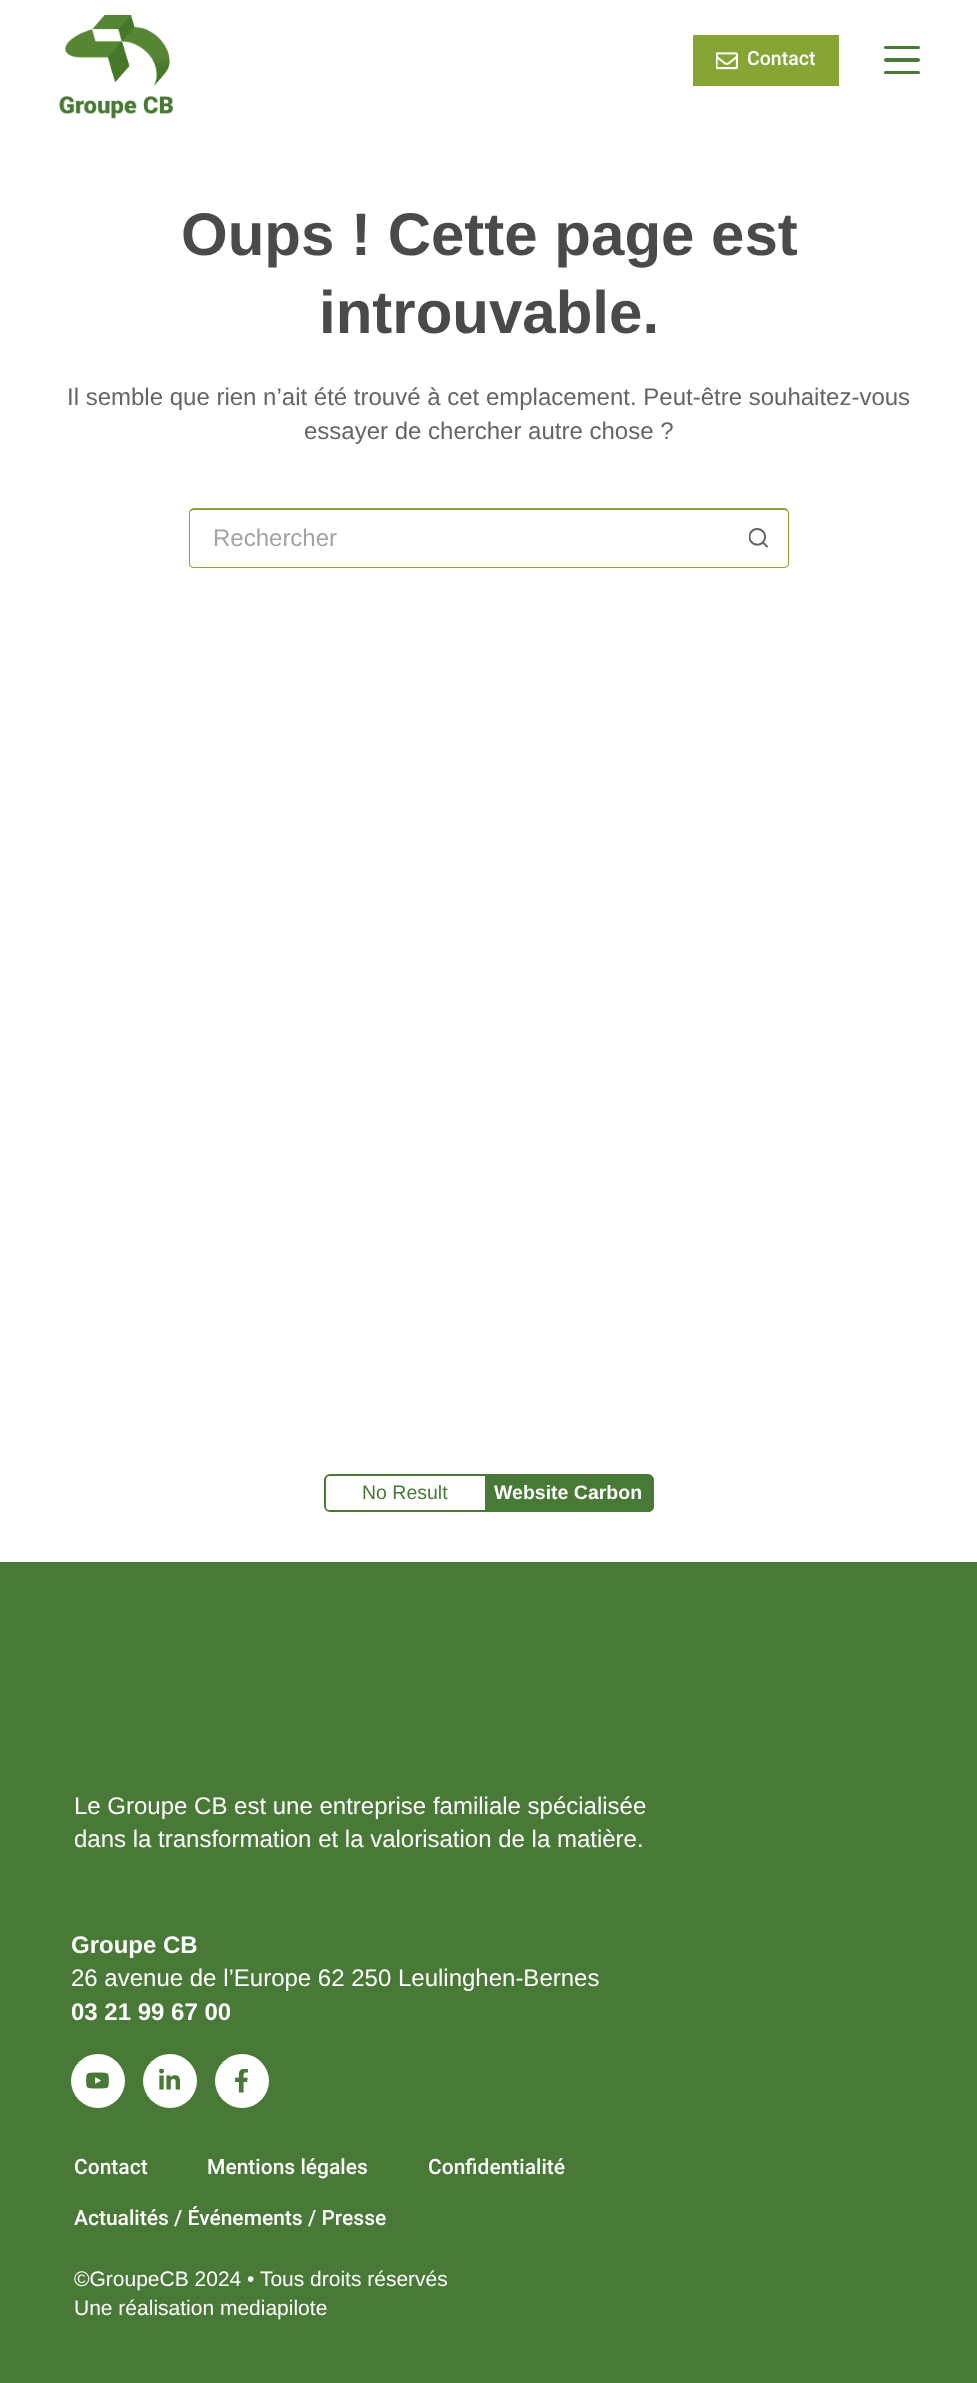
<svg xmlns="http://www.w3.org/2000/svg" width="977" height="2383">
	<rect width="100%" height="100%" fill="#FFFFFF" />
	<image x="59" y="15" width="115" height="104" href="assets/img1.png" />
	<rect x="693" y="35" width="146" height="51" fill="#86A534" />
	<image x="716" y="52" width="22" height="18" href="assets/img2.png" />
	<text x="747" y="65" font-family="Roboto" font-size="19.5" font-weight="500" fill="#FFFFFF">Contact</text>
	<rect x="884" y="46" width="36" height="3" rx="1.5" fill="#497936" />
	<rect x="884" y="58" width="36" height="4" rx="2" fill="#497936" />
	<rect x="884" y="71" width="36" height="3" rx="1.5" fill="#497936" />
	<g font-family="Liberation Sans" font-size="60" font-weight="700" fill="#4A4A4A">
		<text x="181" y="255">Oups ! Cette page est</text>
		<text x="319" y="333">introuvable.</text>
	</g>
	<g font-family="Liberation Sans" font-size="24" fill="#656565">
		<text x="67" y="405">Il semble que rien n’ait été trouvé à cet emplacement. Peut-être souhaitez-vous</text>
		<text x="304" y="439">essayer de chercher autre chose ?</text>
	</g>
	<path d="M194 508H729V568H194C191 568 189 566 189 564V513C189 511 191 508 194 508ZM194 510H729V567H194C192 567 190 566 190 564V513C190 511 192 510 194 510Z" fill="#86A534" fill-rule="evenodd" />
	<text x="213" y="546" font-family="Liberation Sans" font-size="24" fill="#A3A3A3">Rechercher</text>
	<path d="M729 508H784C787 508 789 511 789 513V564C789 566 787 568 784 568H729ZM729 510H784C786 510 788 511 788 513V564C788 566 786 567 784 567H729Z" fill="#86A534" fill-rule="evenodd" />
	<image x="749" y="528" width="19" height="20" href="assets/img3.png" />
	<path d="M330 1474H484V1512H330C327 1512 324 1509 324 1506V1480C324 1477 327 1474 330 1474ZM330 1476H484V1510H330C327 1510 326 1509 326 1506V1480C326 1478 327 1476 330 1476Z" fill="#497936" fill-rule="evenodd" />
	<text x="362" y="1499" font-family="Liberation Sans" font-size="19.5" fill="#497936">No Result</text>
	<path d="M485 1475H648C651.5 1475 654 1477.5 654 1481V1506C654 1509.5 651.5 1512 648 1512H485Z" fill="#497936" />
	<path d="M484 1474H648C651 1474 654 1477 654 1480V1506C654 1509 651 1512 648 1512H484ZM484 1476H648C651 1476 652 1478 652 1480V1506C652 1509 651 1510 648 1510H484Z" fill="#497936" fill-rule="evenodd" />
	<text x="494" y="1499" font-family="Liberation Sans" font-size="19.5" font-weight="700" fill="#FFFFFF">Website Carbon</text>
	<rect x="0" y="1562" width="977" height="821" fill="#497936" />
	<g font-family="Liberation Sans" font-size="24" fill="#FFFFFF">
		<text x="74" y="1814">Le Groupe CB est une entreprise familiale spécialisée</text>
		<text x="74" y="1847">dans la transformation et la valorisation de la matière.</text>
	</g>
	<text x="71" y="1953" font-family="Liberation Sans" font-size="24" font-weight="700" fill="#FFFFFF">Groupe CB</text>
	<text x="71" y="1986" font-family="Liberation Sans" font-size="24" fill="#FFFFFF">26 avenue de l’Europe 62 250 Leulinghen-Bernes</text>
	<text x="71" y="2020" font-family="Liberation Sans" font-size="24" font-weight="700" fill="#FFFFFF">03 21 99 67 00</text>
	<circle cx="98" cy="2081" r="27" fill="#FFFFFF" />
	<image x="86" y="2072" width="23" height="17" href="assets/img4.png" />
	<circle cx="170" cy="2081" r="27" fill="#FFFFFF" />
	<image x="159" y="2069" width="21" height="21" href="assets/img5.png" />
	<circle cx="242" cy="2081" r="27" fill="#FFFFFF" />
	<image x="235" y="2069" width="13" height="24" href="assets/img6.png" />
	<g font-family="Roboto" font-size="21" font-weight="500" fill="#FFFFFF">
		<text x="74" y="2174">Contact</text>
		<text x="207" y="2174">Mentions légales</text>
		<text x="428" y="2174">Confidentialité</text>
		<text x="74" y="2225">Actualités / Événements / Presse</text>
	</g>
	<g font-family="Liberation Sans" font-size="21" fill="#FFFFFF">
		<text x="74" y="2286">©GroupeCB 2024 • Tous droits réservés</text>
		<text x="74" y="2315">Une réalisation mediapilote</text>
	</g>
</svg>
